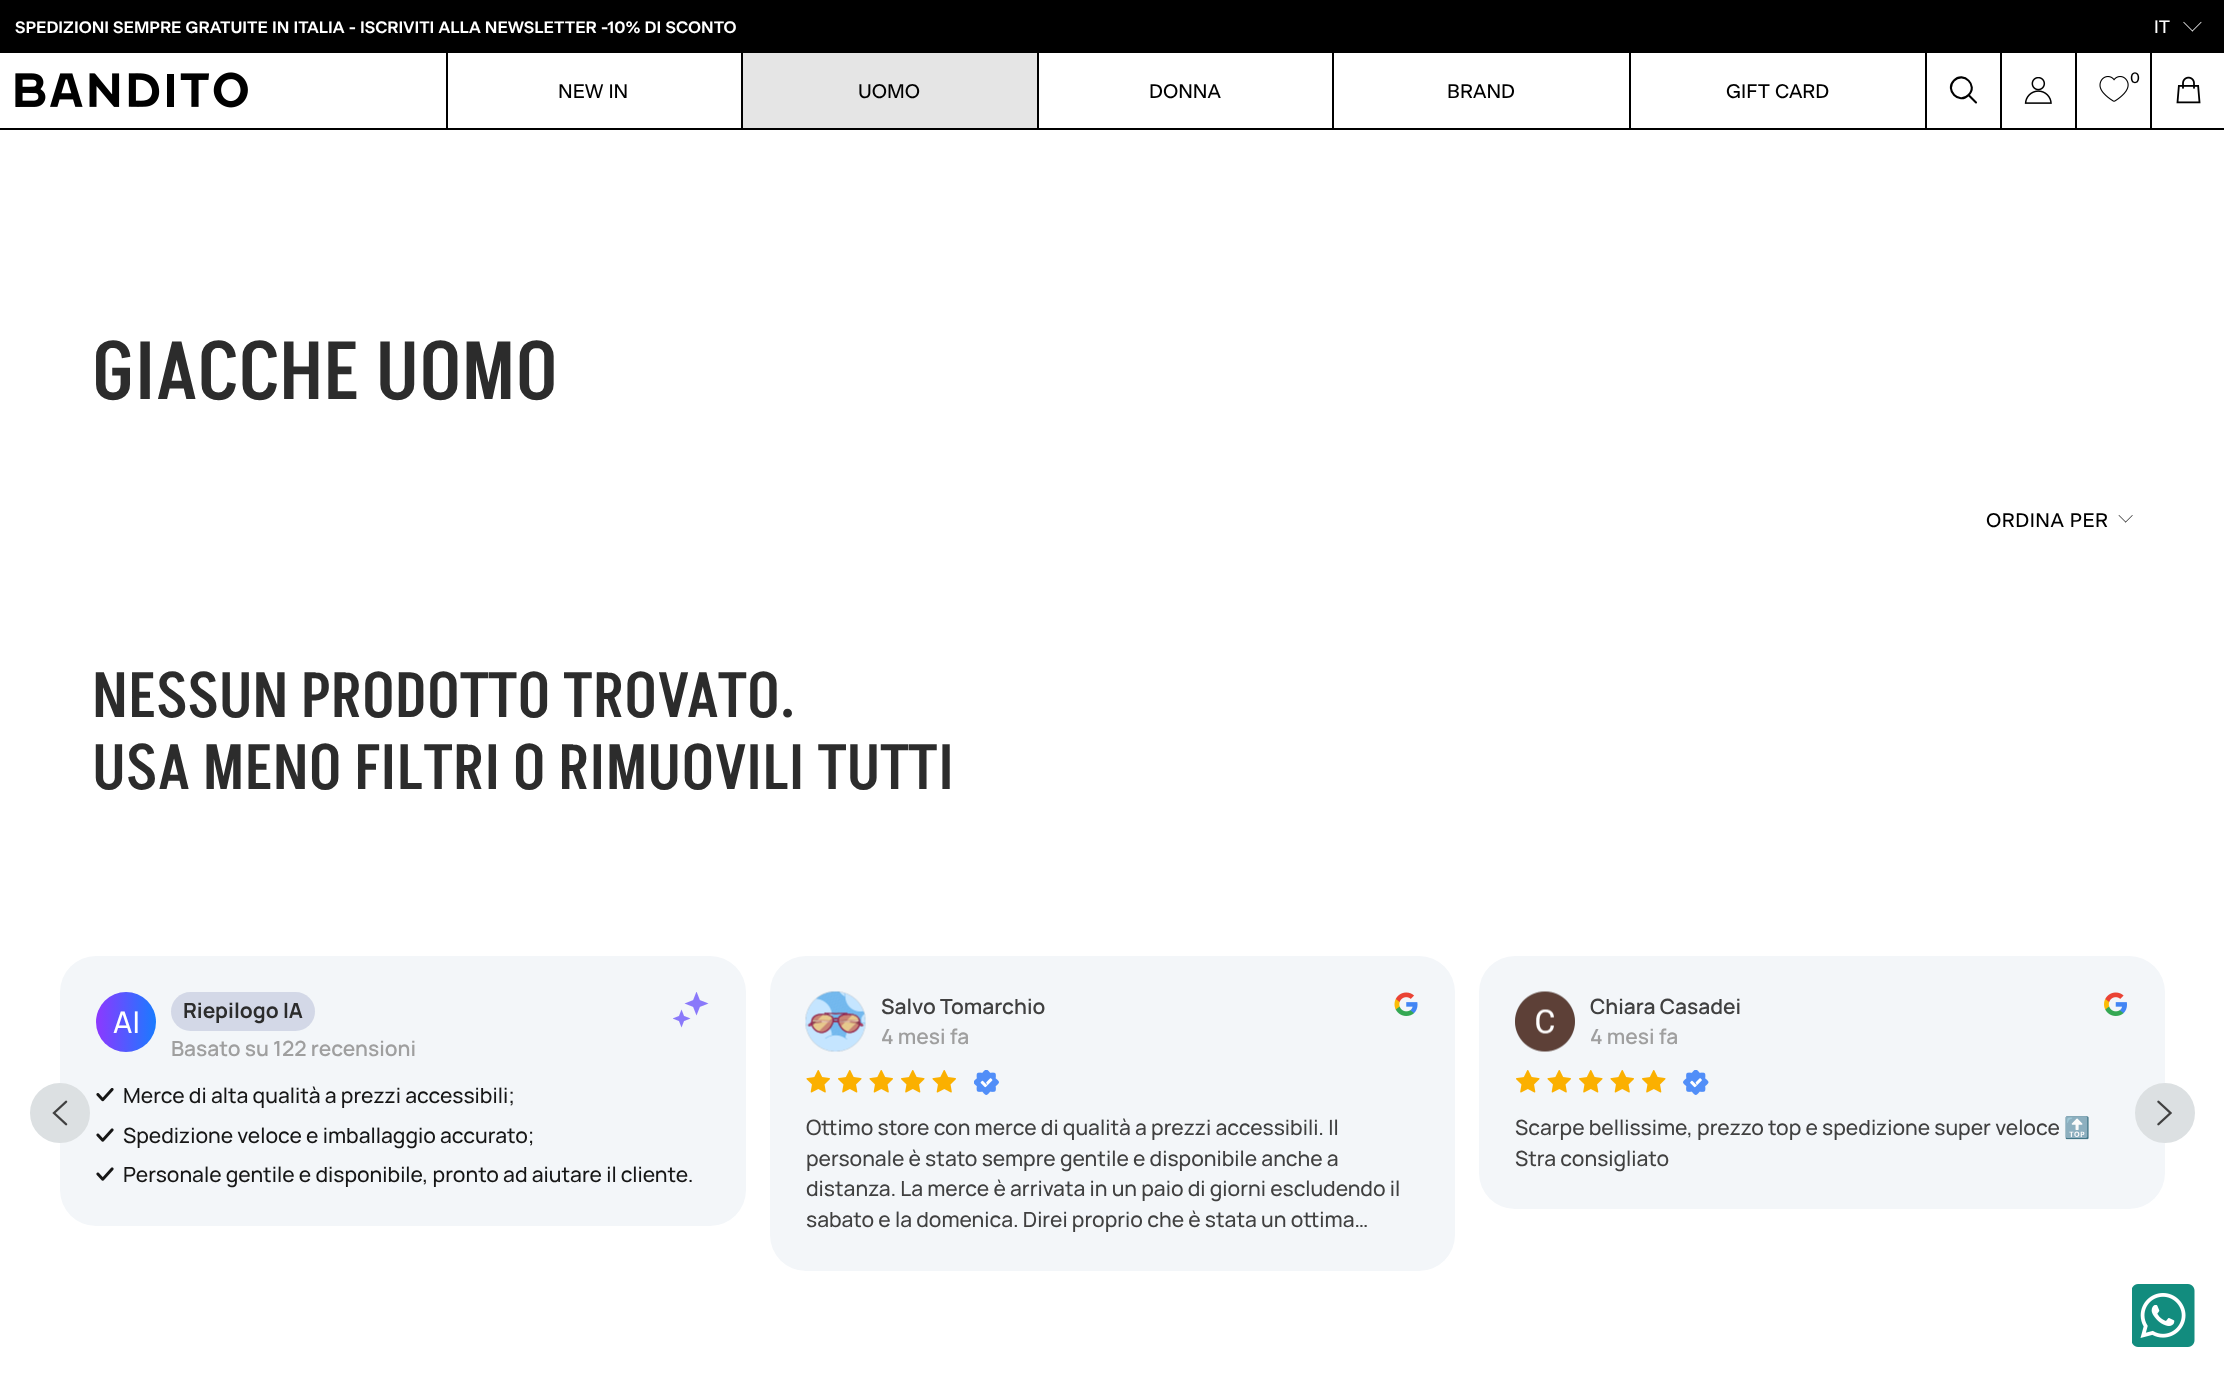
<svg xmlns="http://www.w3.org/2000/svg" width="2224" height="1376">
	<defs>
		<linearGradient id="g1" gradientUnits="userSpaceOnUse" x1="96" y1="1022" x2="156" y2="1022"><stop offset="0" stop-color="#8D38FF" /><stop offset="1" stop-color="#197BFF" /></linearGradient>
	</defs>
	<rect width="100%" height="100%" fill="#FFFFFF" />
	<rect x="0" y="128" width="2224" height="2" fill="#000000" />
	<rect x="0" y="0" width="2224" height="53" fill="#000000" />
	<text x="15" y="33" font-family="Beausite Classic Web" font-size="16.5" font-weight="600" fill="#FFFFFF">SPEDIZIONI SEMPRE GRATUITE IN ITALIA - ISCRIVITI ALLA NEWSLETTER -10% DI SCONTO</text>
	<text x="2154" y="33" font-family="Beausite Classic Web" font-size="18" fill="#FFFFFF">IT</text>
	<image x="2183" y="21" width="19" height="11" href="assets/img1.png" />
	<image x="15" y="72" width="233" height="36" href="assets/img2.png" />
	<rect x="1925" y="53" width="2" height="75" fill="#000000" />
	<path d="M1976 102.5L1968.5 95M1968.5 95C1978.5 85.5 1963.5 71 1954 80.5C1944.5 90 1959 105 1968.5 95Z" fill="none" stroke="#000000" stroke-width="2.1" stroke-linecap="round" stroke-linejoin="round" />
	<rect x="2000" y="53" width="2" height="75" fill="#000000" />
	<image x="2024" y="77" width="28" height="27" href="assets/img3.png" />
	<rect x="2075" y="53" width="2" height="75" fill="#000000" />
	<image x="2099" y="76" width="30" height="26" href="assets/img4.png" />
	<text x="2130" y="83" font-family="Beausite Classic Web" font-size="15" fill="#000000">0</text>
	<rect x="2150" y="53" width="2" height="75" fill="#000000" />
	<image x="2176" y="76" width="25" height="28" href="assets/img5.png" />
	<rect x="446" y="53" width="2" height="75" fill="#000000" />
	<text x="558" y="98" font-family="Beausite Classic Web" font-size="19.5" fill="#000000">NEW IN</text>
	<rect x="741" y="53" width="2" height="75" fill="#000000" />
	<rect x="743" y="53" width="294" height="75" fill="#E5E5E5" />
	<text x="858" y="98" font-family="Beausite Classic Web" font-size="19.5" fill="#000000">UOMO</text>
	<rect x="1037" y="53" width="2" height="75" fill="#000000" />
	<text x="1149" y="98" font-family="Beausite Classic Web" font-size="19.5" fill="#000000">DONNA</text>
	<rect x="1332" y="53" width="2" height="75" fill="#000000" />
	<text x="1447" y="98" font-family="Beausite Classic Web" font-size="19.5" fill="#000000">BRAND</text>
	<rect x="1629" y="53" width="2" height="75" fill="#000000" />
	<text x="1726" y="98" font-family="Beausite Classic Web" font-size="19.5" fill="#000000">GIFT CARD</text>
	<text x="92" y="399" font-family="Akshar" font-size="81" font-weight="500" fill="#2C2C2C">GIACCHE UOMO</text>
	<text x="1986" y="527" font-family="Beausite Classic Web" font-size="19.5" letter-spacing="0.5" fill="#000000">ORDINA PER</text>
	<image x="2118" y="515" width="15" height="8" href="assets/img6.png" />
	<g font-family="Akshar" font-size="63" font-weight="500" fill="#2C2C2C">
		<text x="92" y="717">NESSUN PRODOTTO TROVATO.</text>
		<text x="92" y="789">USA MENO FILTRI O RIMUOVILI TUTTI</text>
	</g>
	<rect x="60" y="956" width="686" height="270" rx="36" fill="#F3F6F9" />
	<circle cx="60" cy="1113" r="29" fill="#DCE0E2" stroke="#DCE0E2" stroke-width="2" />
	<image x="52" y="1100" width="16" height="26" href="assets/img7.png" />
	<circle cx="126" cy="1022" r="30" fill="url(#g1)" />
	<text x="113" y="1033" font-family="Manrope" font-size="30" font-weight="500" fill="#FFFFFF">AI</text>
	<rect x="171" y="992" width="144" height="39" rx="19.5" fill="#D3D8E7" />
	<text x="183" y="1018" font-family="Manrope" font-size="21" font-weight="700" fill="#2C2C2C">Riepilogo IA</text>
	<text x="171" y="1056" font-family="Manrope" font-size="21" font-weight="600" fill="#9F9F9F">Basato su 122 recensioni</text>
	<image x="673" y="992" width="36" height="36" href="assets/img8.png" />
	<image x="96" y="1088" width="18" height="14" href="assets/img9.png" />
	<text x="123" y="1103" font-family="Manrope" font-size="21" font-weight="500" fill="#161616">Merce di alta qualità a prezzi accessibili;</text>
	<image x="96" y="1128" width="18" height="14" href="assets/img10.png" />
	<text x="123" y="1143" font-family="Manrope" font-size="21" font-weight="500" fill="#161616">Spedizione veloce e imballaggio accurato;</text>
	<image x="96" y="1167" width="18" height="14" href="assets/img10.png" />
	<text x="123" y="1182" font-family="Manrope" font-size="21" font-weight="500" fill="#161616">Personale gentile e disponibile, pronto ad aiutare il cliente.</text>
	<rect x="770" y="956" width="685" height="315" rx="36" fill="#F3F6F9" />
	<image x="805" y="991" width="61" height="61" href="assets/img11.png" />
	<text x="881" y="1014" font-family="Manrope" font-size="21" font-weight="600" fill="#404040">Salvo Tomarchio</text>
	<text x="881" y="1044" font-family="Manrope" font-size="21" font-weight="600" fill="#9F9F9F">4 mesi fa</text>
	<image x="1394" y="992" width="24" height="24" href="assets/img12.png" />
	<image x="806" y="1070" width="24" height="23" href="assets/img13.png" />
	<image x="838" y="1070" width="24" height="23" href="assets/img14.png" />
	<image x="869" y="1070" width="24" height="23" href="assets/img13.png" />
	<image x="901" y="1070" width="24" height="23" href="assets/img14.png" />
	<image x="932" y="1070" width="24" height="23" href="assets/img13.png" />
	<image x="974" y="1070" width="25" height="25" href="assets/img15.png" />
	<g font-family="Manrope" font-size="21" font-weight="500" fill="#404040">
		<text x="806" y="1135">Ottimo store con merce di qualità a prezzi accessibili. Il</text>
		<text x="806" y="1166">personale è stato sempre gentile e disponibile anche a</text>
		<text x="806" y="1196">distanza. La merce è arrivata in un paio di giorni escludendo il</text>
		<text x="806" y="1227">sabato e la domenica. Direi proprio che è stata un ottima…</text>
	</g>
	<rect x="1479" y="956" width="686" height="253" rx="36" fill="#F3F6F9" />
	<image x="1515" y="991" width="60" height="61" href="assets/img16.png" />
	<text x="1590" y="1014" font-family="Manrope" font-size="21" font-weight="600" fill="#404040">Chiara Casadei</text>
	<text x="1590" y="1044" font-family="Manrope" font-size="21" font-weight="600" fill="#9F9F9F">4 mesi fa</text>
	<image x="2104" y="992" width="23" height="24" href="assets/img17.png" />
	<image x="1516" y="1070" width="24" height="23" href="assets/img14.png" />
	<image x="1547" y="1070" width="24" height="23" href="assets/img13.png" />
	<image x="1579" y="1070" width="24" height="23" href="assets/img14.png" />
	<image x="1610" y="1070" width="24" height="23" href="assets/img13.png" />
	<image x="1642" y="1070" width="24" height="23" href="assets/img14.png" />
	<image x="1683" y="1070" width="26" height="25" href="assets/img18.png" />
	<text x="1515" y="1135" font-family="Manrope" font-size="21" font-weight="500" fill="#404040">Scarpe bellissime, prezzo top e spedizione super veloce</text>
	<text x="2064" y="1135" font-family="Noto Color Emoji" font-size="21" fill="#404040">🔝</text>
	<text x="1515" y="1166" font-family="Manrope" font-size="21" font-weight="500" fill="#404040">Stra consigliato</text>
	<circle cx="2165" cy="1113" r="29" fill="#DCE0E2" stroke="#DCE0E2" stroke-width="2" />
	<image x="2157" y="1100" width="15" height="26" href="assets/img19.png" />
	<image x="2132" y="1284" width="63" height="63" href="assets/img20.png" />
</svg>
